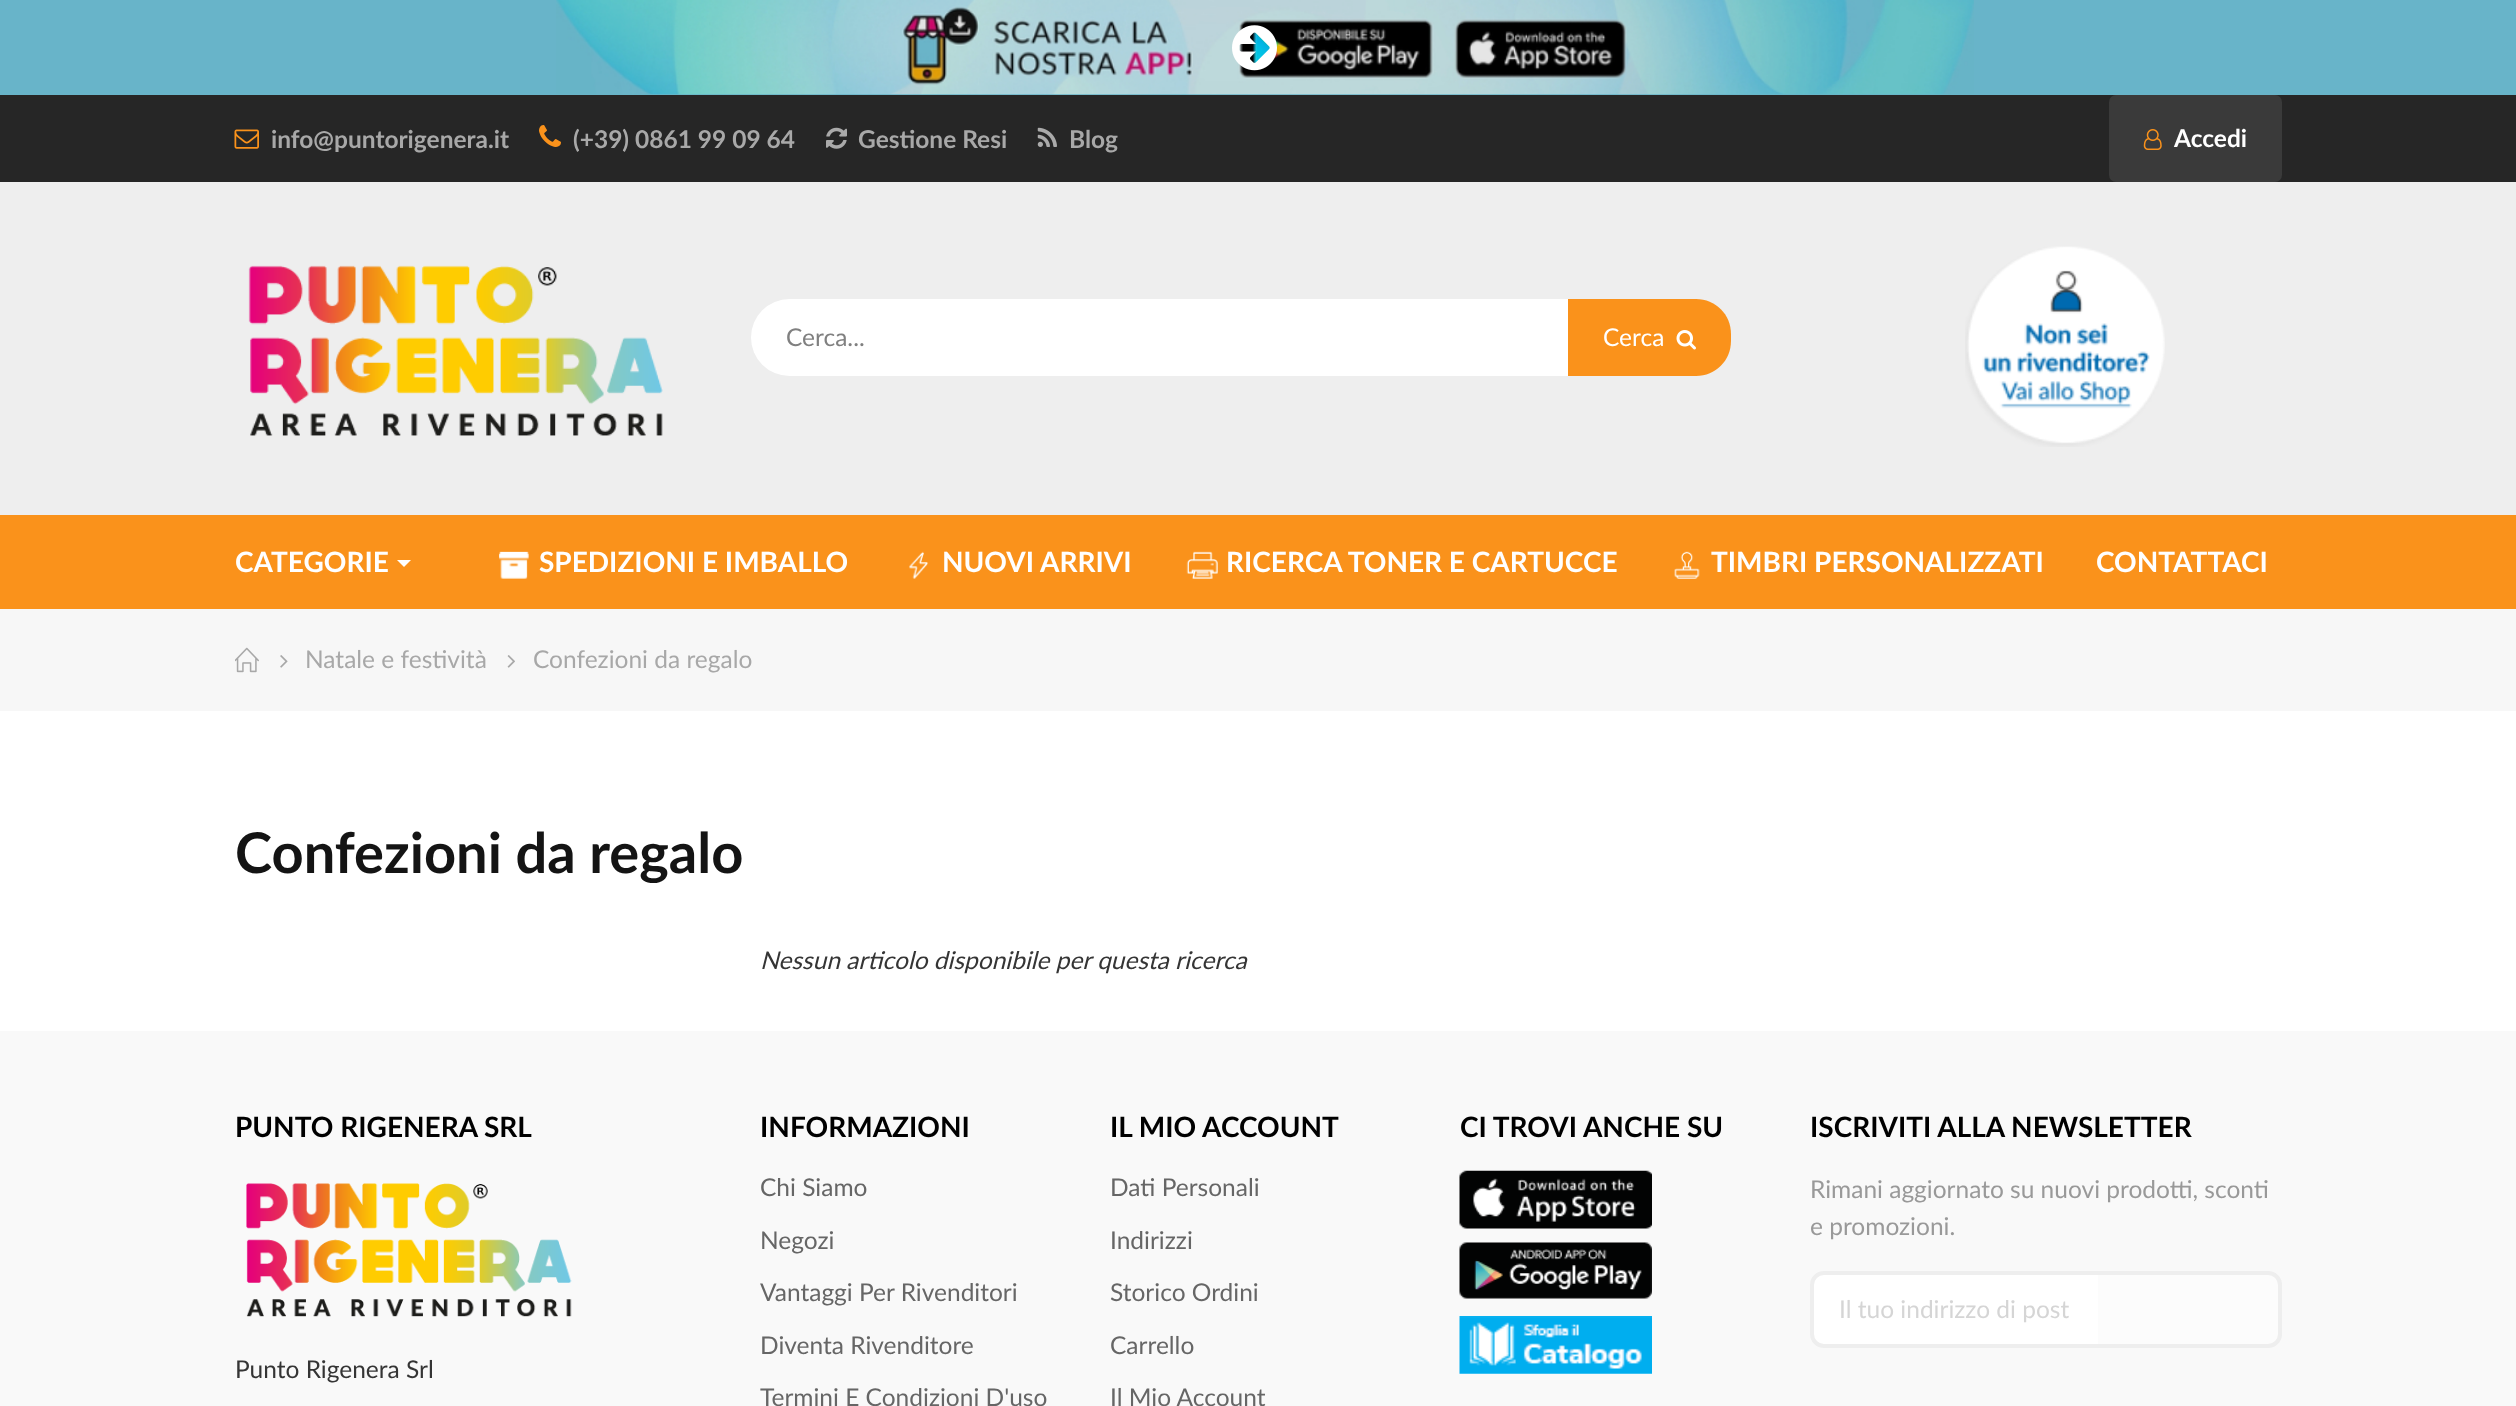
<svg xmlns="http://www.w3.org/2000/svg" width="2516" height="1406">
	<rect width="100%" height="100%" fill="#FFFFFF" />
	<rect x="0" y="0" width="2516" height="95" fill="#68B4C9" />
	<image x="556" y="0" width="1418" height="95" href="assets/img1.png" />
	<image x="1232" y="25" width="45" height="46" href="assets/img2.png" />
	<rect x="0" y="95" width="2516" height="87" fill="#262626" />
	<image x="234" y="129" width="25" height="20" href="assets/img3.png" />
	<text x="271" y="148" font-family="Lato" font-size="24.5" font-weight="700" fill="#A8A8A8">info@puntorigenera.it</text>
	<image x="539" y="125" width="22" height="22" href="assets/img4.png" />
	<text x="573" y="148" font-family="Lato" font-size="24.5" font-weight="700" fill="#A8A8A8">(+39) 0861 99 09 64</text>
	<image x="826" y="127" width="21" height="22" href="assets/img5.png" />
	<text x="858" y="148" font-family="Lato" font-size="24.5" font-weight="700" fill="#A8A8A8">Gestione Resi</text>
	<image x="1037" y="127" width="20" height="20" href="assets/img6.png" />
	<text x="1069" y="148" font-family="Lato" font-size="24.5" font-weight="700" fill="#A8A8A8">Blog</text>
	<rect x="2109" y="95" width="173" height="87" rx="7" fill="#3A3A3A" />
	<image x="2143" y="129" width="19" height="21" href="assets/img7.png" />
	<text x="2174" y="147" font-family="Lato" font-size="24.5" font-weight="700" fill="#FFFFFF">Accedi</text>
	<rect x="0" y="182" width="2516" height="333" fill="#EEEEEE" />
	<image x="248" y="265" width="415" height="171" href="assets/img8.png" />
	<rect x="751" y="299" width="980" height="77" rx="38.5" fill="#FFFFFF" />
	<text x="786" y="346" font-family="Lato" font-size="24.5" fill="#808080">Cerca...</text>
	<path d="M1568 299H1696C1715.5 299 1731 314.5 1731 334V341C1731 360.5 1715.5 376 1696 376H1568Z" fill="#FA921B" />
	<text x="1603" y="346" font-family="Lato" font-size="24.5" fill="#FFFFFF">Cerca</text>
	<image x="1676" y="330" width="20" height="20" href="assets/img9.png" />
	<image x="1965" y="246" width="200" height="201" href="assets/img10.png" />
	<rect x="0" y="515" width="2516" height="94" fill="#FA921B" />
	<text x="235" y="572" font-family="Lato" font-size="28" font-weight="700" fill="#FFFFFF">CATEGORIE</text>
	<path d="M397 560H411L404 567Z" fill="#FFFFFF" />
	<image x="499" y="551" width="30" height="28" href="assets/img11.png" />
	<text x="539" y="572" font-family="Lato" font-size="28" font-weight="700" fill="#FFFFFF">SPEDIZIONI E IMBALLO</text>
	<image x="909" y="551" width="20" height="28" href="assets/img12.png" />
	<text x="942" y="572" font-family="Lato" font-size="28" font-weight="700" fill="#FFFFFF">NUOVI ARRIVI</text>
	<image x="1186" y="551" width="32" height="28" href="assets/img13.png" />
	<text x="1226" y="572" font-family="Lato" font-size="28" font-weight="700" fill="#FFFFFF">RICERCA TONER E CARTUCCE</text>
	<image x="1674" y="551" width="26" height="28" href="assets/img14.png" />
	<g font-family="Lato" font-size="28" font-weight="700" fill="#FFFFFF">
		<text x="1711" y="572">TIMBRI PERSONALIZZATI</text>
		<text x="2096" y="572">CONTATTACI</text>
	</g>
	<rect x="0" y="609" width="2516" height="102" fill="#F7F7F7" />
	<image x="235" y="647" width="24" height="26" href="assets/img15.png" />
	<image x="280" y="655" width="8" height="13" href="assets/img16.png" />
	<text x="305" y="668" font-family="Lato" font-size="24.5" fill="#A8A8A8">Natale e festività</text>
	<image x="507" y="655" width="8" height="13" href="assets/img17.png" />
	<text x="533" y="668" font-family="Lato" font-size="24.5" fill="#A8A8A8">Confezioni da regalo</text>
	<text x="235" y="873" font-family="Lato" font-size="56" font-weight="700" fill="#141414">Confezioni da regalo</text>
	<text x="760" y="969" font-family="Lato" font-size="24.5" font-style="italic" fill="#353535">Nessun articolo disponibile per questa ricerca</text>
	<rect x="0" y="1031" width="2516" height="375" fill="#F9F9F9" />
	<text x="235" y="1137" font-family="Lato" font-size="28" font-weight="700" fill="#000000">PUNTO RIGENERA SRL</text>
	<image x="246" y="1183" width="326" height="134" href="assets/img18.png" />
	<text x="235" y="1378" font-family="Lato" font-size="24.5" fill="#353535">Punto Rigenera Srl</text>
	<text x="760" y="1137" font-family="Lato" font-size="28" font-weight="700" fill="#000000">INFORMAZIONI</text>
	<g font-family="Lato" font-size="24.5" fill="#666666">
		<text x="760" y="1196">Chi Siamo</text>
		<text x="760" y="1249">Negozi</text>
		<text x="760" y="1301">Vantaggi Per Rivenditori</text>
		<text x="760" y="1354">Diventa Rivenditore</text>
		<text x="760" y="1406">Termini E Condizioni D'uso</text>
	</g>
	<text x="1110" y="1137" font-family="Lato" font-size="28" font-weight="700" fill="#000000">IL MIO ACCOUNT</text>
	<g font-family="Lato" font-size="24.5" fill="#666666">
		<text x="1110" y="1196">Dati Personali</text>
		<text x="1110" y="1249">Indirizzi</text>
		<text x="1110" y="1301">Storico Ordini</text>
		<text x="1110" y="1354">Carrello</text>
		<text x="1110" y="1406">Il Mio Account</text>
	</g>
	<text x="1460" y="1137" font-family="Lato" font-size="28" font-weight="700" fill="#000000">CI TROVI ANCHE SU</text>
	<image x="1459" y="1170" width="193" height="59" href="assets/img19.png" />
	<image x="1459" y="1242" width="193" height="57" href="assets/img20.png" />
	<image x="1459" y="1316" width="193" height="58" href="assets/img21.png" />
	<text x="1810" y="1137" font-family="Lato" font-size="28" font-weight="700" fill="#000000">ISCRIVITI ALLA NEWSLETTER</text>
	<g font-family="Lato" font-size="24.5" fill="#999999">
		<text x="1810" y="1198">Rimani aggiornato su nuovi prodotti, sconti</text>
		<text x="1810" y="1235">e promozioni.</text>
	</g>
	<rect x="1812" y="1273" width="468" height="73" rx="12" fill="#FFFFFF" stroke="#EEEEEE" stroke-width="4" />
	<text x="1839" y="1318" font-family="Lato" font-size="24.5" fill="#D5D5D5">Il tuo indirizzo di post</text>
	<path d="M2098 1271H2268C2275.5 1271 2282 1277.5 2282 1285V1334C2282 1341.5 2275.5 1348 2268 1348H2098Z" fill="#EFEFEF" fill-opacity="0.2" />
</svg>
